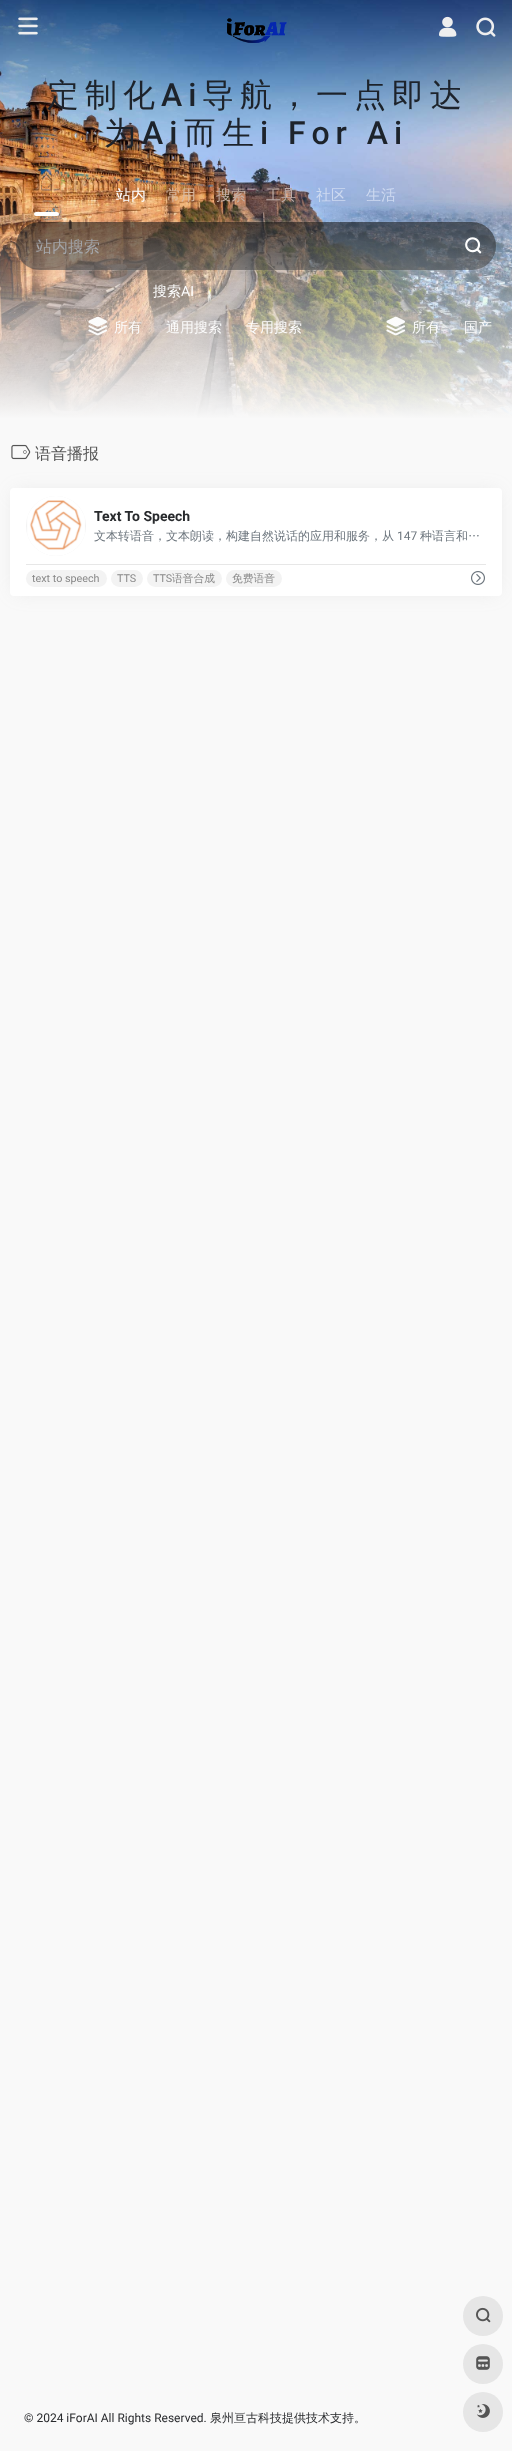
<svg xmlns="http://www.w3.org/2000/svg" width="512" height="2451">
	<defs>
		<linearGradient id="g1" gradientUnits="userSpaceOnUse" x1="256" y1="419" x2="256" y2="139"><stop offset="0" stop-color="#F9F9F9" /><stop offset="0.8" stop-color="#F9F9F9" stop-opacity="0" /></linearGradient>
	</defs>
	<rect width="100%" height="100%" fill="#F9F9F9" />
	<image x="0" y="0" width="512" height="418" href="assets/img5.png" />
	<image x="18" y="17" width="20" height="18" href="assets/img1.png" />
	<image x="227" y="18" width="60" height="25" href="assets/img2.png" />
	<image x="439" y="16" width="18" height="21" href="assets/img3.png" />
	<image x="476" y="17" width="20" height="20" href="assets/img4.png" />
	<text x="47" y="106" font-family="WenQuanYi Zen Hei" font-size="32" font-weight="500" letter-spacing="6" fill="#1D232B">定制化</text>
	<text x="161" y="106" font-family="Roboto" font-size="32" font-weight="500" letter-spacing="6" fill="#1D232B">Ai</text>
	<g font-family="WenQuanYi Zen Hei" font-size="32" font-weight="500" letter-spacing="6" fill="#1D232B">
		<text x="202" y="106">导航，一点即达</text>
		<text x="104" y="144">为</text>
	</g>
	<text x="142" y="144" font-family="Roboto" font-size="32" font-weight="500" letter-spacing="6" fill="#1D232B">Ai</text>
	<text x="184" y="144" font-family="WenQuanYi Zen Hei" font-size="32" font-weight="500" letter-spacing="6" fill="#1D232B">而生</text>
	<text x="260" y="144" font-family="Roboto" font-size="32" font-weight="500" letter-spacing="6" fill="#1D232B">i For Ai</text>
	<text x="116" y="200" font-family="WenQuanYi Zen Hei" font-size="15" font-weight="500" fill="#FFFFFF">站内</text>
	<text x="166" y="200" font-family="WenQuanYi Zen Hei" font-size="15" font-weight="500" fill="#D9BAA1">常用</text>
	<text x="216" y="200" font-family="WenQuanYi Zen Hei" font-size="15" font-weight="500" fill="#C2ADA2">搜索</text>
	<text x="266" y="200" font-family="WenQuanYi Zen Hei" font-size="15" font-weight="500" fill="#BAABA7">工具</text>
	<g font-family="WenQuanYi Zen Hei" font-size="15" font-weight="500" fill="#CDD9F0">
		<text x="316" y="200">社区</text>
		<text x="366" y="200">生活</text>
	</g>
	<rect x="34" y="212" width="25" height="4" rx="2" fill="#FFFFFF" />
	<rect x="16" y="222" width="480" height="48" rx="24" fill="#000000" fill-opacity="0.6" />
	<rect x="15.5" y="221.5" width="481" height="49" fill="none" stroke="#FFFFFF" stroke-opacity="0.05" />
	<text x="36" y="252" font-family="WenQuanYi Zen Hei" font-size="16" font-weight="500" fill="#888A8F">站内搜索</text>
	<image x="465" y="237" width="17" height="17" href="assets/img6.png" />
	<text x="153" y="296" font-family="WenQuanYi Zen Hei" font-size="14" font-weight="500" fill="#FFFFFF">搜索</text>
	<text x="181" y="296" font-family="Roboto" font-size="14" fill="#FFFFFF">AI</text>
	<image x="88" y="316" width="20" height="20" href="assets/img7.png" />
	<g font-family="WenQuanYi Zen Hei" font-size="14" font-weight="500" fill="#FFFFFF">
		<text x="114" y="332">所有</text>
		<text x="166" y="332">通用搜索</text>
		<text x="246" y="332">专用搜索</text>
	</g>
	<image x="386" y="316" width="20" height="20" href="assets/img8.png" />
	<g font-family="WenQuanYi Zen Hei" font-size="14" font-weight="500" fill="#FFFFFF">
		<text x="412" y="332">所有</text>
		<text x="464" y="332">国产</text>
	</g>
	<rect x="0" y="200" width="512" height="218" fill="url(#g1)" />
	<image x="11" y="444" width="20" height="16" href="assets/img9.png" />
	<text x="35" y="459" font-family="WenQuanYi Zen Hei" font-size="16" font-weight="500" fill="#555555">语音播报</text>
	<rect x="15" y="493" width="482" height="98" fill="#9E9E9E" fill-opacity="0.2" filter="blur(10px)" />
	<rect x="10" y="488" width="492" height="108" rx="4" fill="#FFFFFF" />
	<circle cx="56" cy="526" r="30" fill="#F2F2F2" />
	<image x="27" y="496" width="58" height="60" href="assets/img10.png" />
	<text x="94" y="521" font-family="Roboto" font-size="14" font-weight="700" fill="#282A2D">Text To Speech</text>
	<text x="94" y="540" font-family="WenQuanYi Zen Hei" font-size="12" font-weight="500" fill="#6C757D">文本转语音，文本朗读，构建自然说话的应用和服务，从</text>
	<text x="397" y="540" font-family="Roboto" font-size="12" fill="#6C757D">147</text>
	<text x="420" y="540" font-family="WenQuanYi Zen Hei" font-size="12" font-weight="500" fill="#6C757D">种语言和…</text>
	<rect x="26" y="564" width="460" height="1" fill="#E7E7E7" />
	<rect x="26" y="570" width="81" height="17" rx="8.5" fill="#F3F3F3" />
	<text x="32" y="582" font-family="Roboto" font-size="10.75" fill="#888888">text to speech</text>
	<rect x="111" y="570" width="32" height="17" rx="8.5" fill="#F3F3F3" />
	<text x="117" y="582" font-family="Roboto" font-size="10.75" fill="#888888">TTS</text>
	<rect x="147" y="570" width="75" height="17" rx="8.5" fill="#F3F3F3" />
	<text x="153" y="582" font-family="Roboto" font-size="10.75" fill="#888888">TTS</text>
	<text x="172" y="582" font-family="WenQuanYi Zen Hei" font-size="10.75" font-weight="500" fill="#888888">语音合成</text>
	<rect x="226" y="570" width="56" height="17" rx="8.5" fill="#F3F3F3" />
	<text x="232" y="582" font-family="WenQuanYi Zen Hei" font-size="10.75" font-weight="500" fill="#888888">免费语音</text>
	<image x="471" y="571" width="14" height="14" href="assets/img11.png" />
	<text x="24" y="2422" font-family="Roboto" font-size="12" fill="#282A2D">© 2024 iForAI All Rights Reserved.</text>
	<text x="210" y="2422" font-family="WenQuanYi Zen Hei" font-size="12" font-weight="500" fill="#282A2D">泉州亘古科技提供技术支持。</text>
	<circle cx="483" cy="2316" r="20" fill="#E6E6E6" />
	<image x="476" y="2307" width="15" height="16" href="assets/img12.png" />
	<circle cx="483" cy="2364" r="20" fill="#E6E6E6" />
	<image x="476" y="2356" width="14" height="14" href="assets/img13.png" />
	<circle cx="483" cy="2412" r="20" fill="#E6E6E6" />
	<image x="477" y="2404" width="13" height="14" href="assets/img14.png" />
</svg>
